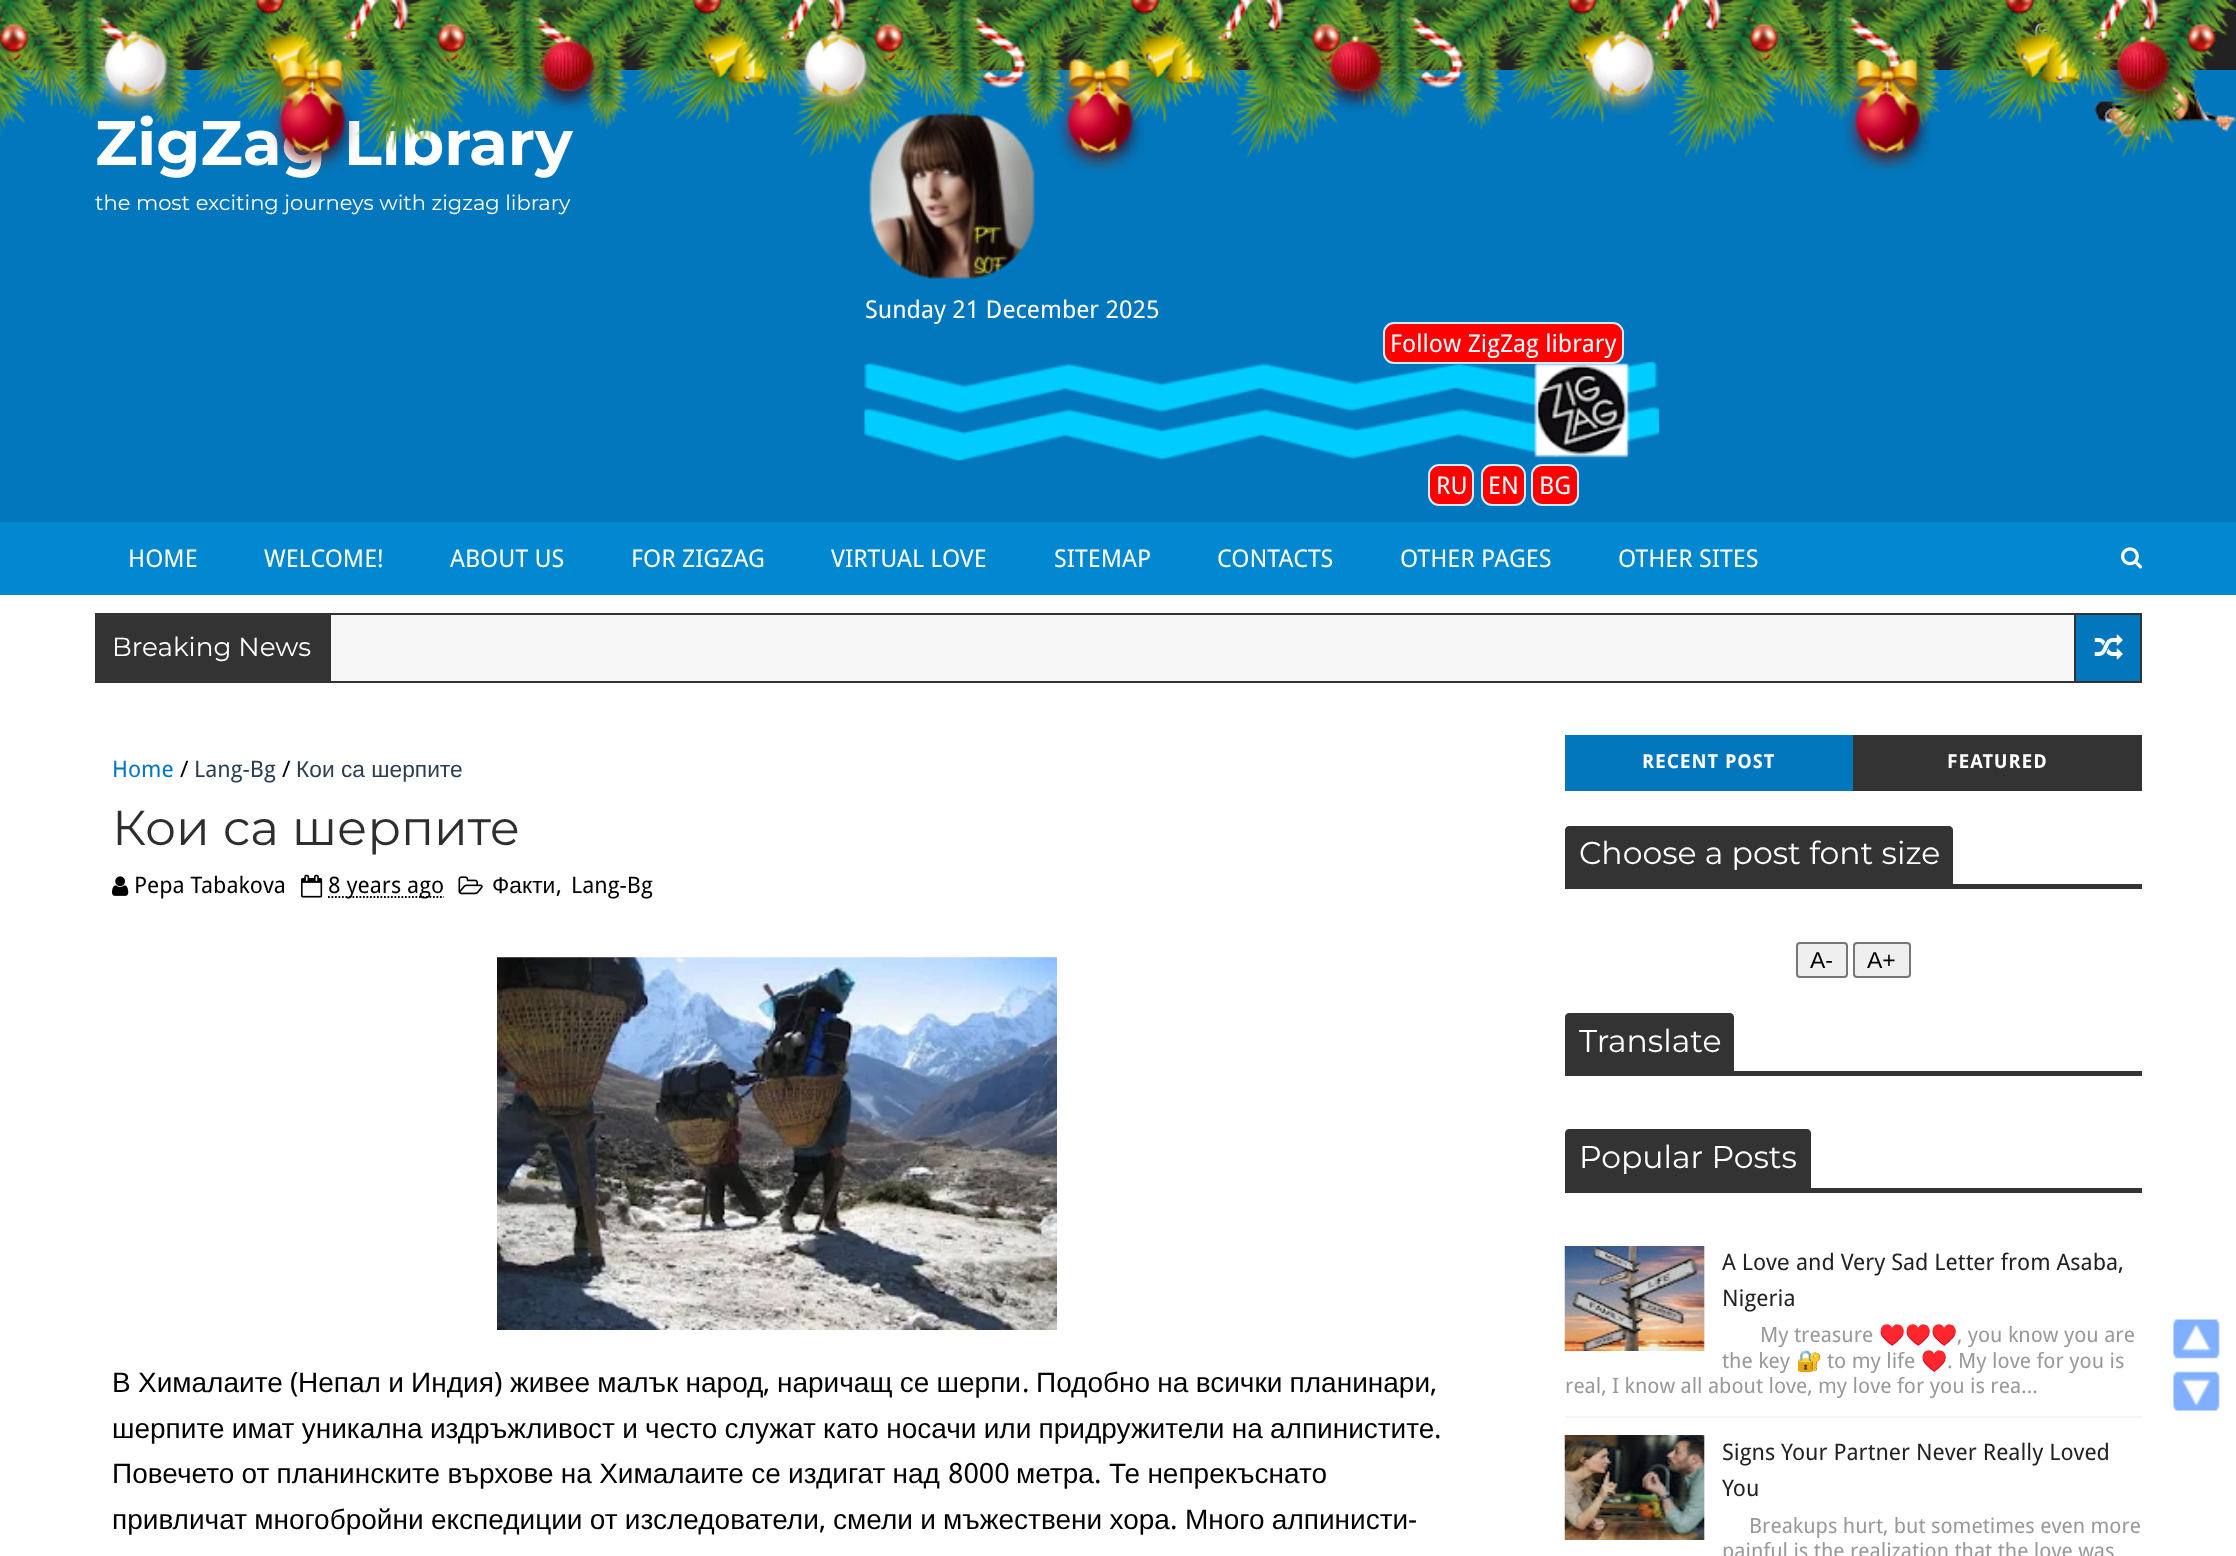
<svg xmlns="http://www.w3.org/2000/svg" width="2236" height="1556">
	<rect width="100%" height="100%" fill="#FFFFFF" />
	<rect x="1704" y="1435" width="1" height="105" fill="#F4F4F4" />
	<rect x="1704" y="1246" width="1" height="105" fill="#F4F4F4" />
	<rect x="0" y="70" width="2236" height="452" fill="#0277BD" />
	<image x="2094" y="70" width="142" height="70" href="assets/img16.png" />
	<rect x="0" y="0" width="2236" height="70" fill="#222222" />
	<image x="1921" y="24" width="9" height="22" href="assets/img19.png" />
	<image x="1973" y="26" width="23" height="18" href="assets/img20.png" />
	<image x="2035" y="23" width="23" height="19" href="assets/img21.png" />
	<image x="1713" y="0" width="523" height="158" href="assets/img6.png" />
	<image x="1276" y="0" width="523" height="158" href="assets/img5.png" />
	<image x="869" y="113" width="166" height="166" href="assets/img22.png" />
	<image x="839" y="0" width="523" height="158" href="assets/img4.png" />
	<text x="95" y="165" font-family="Montserrat" font-size="63" font-weight="700" fill="#FFFFFF">ZigZag Library</text>
	<image x="401" y="0" width="523" height="158" href="assets/img3.png" />
	<image x="0" y="0" width="487" height="158" href="assets/img1.png" />
	<image x="0" y="0" width="49" height="111" href="assets/img2.png" />
	<image x="93" y="0" width="85" height="117" href="assets/img7.png" />
	<image x="532" y="0" width="72" height="112" href="assets/img8.png" />
	<image x="1056" y="0" width="88" height="174" href="assets/img9.png" />
	<image x="1580" y="0" width="86" height="117" href="assets/img10.png" />
	<image x="2106" y="0" width="73" height="111" href="assets/img11.png" />
	<image x="269" y="0" width="88" height="174" href="assets/img12.png" />
	<image x="793" y="0" width="85" height="116" href="assets/img13.png" />
	<image x="1319" y="0" width="73" height="112" href="assets/img14.png" />
	<image x="1844" y="0" width="88" height="174" href="assets/img15.png" />
	<image x="2173" y="1319" width="47" height="40" href="assets/img17.png" />
	<image x="2173" y="1371" width="47" height="40" href="assets/img18.png" />
	<text x="95" y="210" font-family="Montserrat" font-size="21" fill="#FFFFFF">the most exciting journeys with zigzag library</text>
	<text x="865" y="318" font-family="Droid Sans" font-size="24.5" fill="#FFFFFF">Sunday 21 December 2025</text>
	<rect x="1384" y="323" width="239" height="40" rx="10" fill="#FF0000" stroke="#CBEEFE" stroke-width="2" />
	<text x="1390" y="352" font-family="Droid Sans" font-size="24.5" fill="#FFFFFF">Follow ZigZag library</text>
	<image x="864" y="362" width="795" height="99" href="assets/img23.png" />
	<rect x="1429" y="465" width="44" height="40" rx="10" fill="#FF0000" stroke="#CBEEFE" stroke-width="2" />
	<text x="1436" y="494" font-family="Droid Sans" font-size="24.5" fill="#FFFFFF">RU</text>
	<rect x="1482" y="465" width="43" height="40" rx="10" fill="#FF0000" stroke="#CBEEFE" stroke-width="2" />
	<text x="1488" y="494" font-family="Droid Sans" font-size="24.5" fill="#FFFFFF">EN</text>
	<rect x="1532" y="465" width="46" height="40" rx="10" fill="#FF0000" stroke="#CBEEFE" stroke-width="2" />
	<text x="1539" y="494" font-family="Droid Sans" font-size="24.5" fill="#FFFFFF">BG</text>
	<rect x="0" y="522" width="2236" height="73" fill="#0288D1" />
	<g font-family="Droid Sans" font-size="24.5" fill="#FFFFFF">
		<text x="128" y="567">HOME</text>
		<text x="264" y="567">WELCOME!</text>
		<text x="450" y="567">ABOUT US</text>
		<text x="631" y="567">FOR ZIGZAG</text>
		<text x="831" y="567">VIRTUAL LOVE</text>
		<text x="1054" y="567">SITEMAP</text>
		<text x="1217" y="567">CONTACTS</text>
		<text x="1400" y="567">OTHER PAGES</text>
		<text x="1618" y="567">OTHER SITES</text>
	</g>
	<image x="2121" y="547" width="22" height="22" href="assets/img24.png" />
	<rect x="331" y="615" width="1743" height="66" fill="#F7F7F7" />
	<rect x="329" y="613" width="1745" height="2" fill="#333333" />
	<rect x="329" y="681" width="1745" height="2" fill="#333333" />
	<rect x="95" y="613" width="236" height="70" fill="#333333" />
	<text x="112" y="656" font-family="Montserrat" font-size="26.25" fill="#FFFFFF">Breaking News</text>
	<rect x="2075" y="614" width="66" height="68" fill="#0277BD" stroke="#333333" stroke-width="2" />
	<image x="2094" y="634" width="29" height="26" href="assets/img25.png" />
	<text x="112" y="777" font-family="Droid Sans" font-size="22.75" fill="#0277BD">Home</text>
	<text x="180" y="777" font-family="Droid Sans" font-size="22.75" fill="#000000">/</text>
	<text x="194" y="777" font-family="Droid Sans" font-size="22.75" fill="#2C3E50">Lang-Bg</text>
	<text x="282" y="777" font-family="Droid Sans" font-size="22.75" fill="#000000">/</text>
	<text x="296" y="777" font-family="Liberation Sans" font-size="22.75" fill="#2C3E50">Кои са шерпите</text>
	<text x="112" y="845" font-family="Montserrat" font-size="49" fill="#2E2E2E">Кои са шерпите</text>
	<image x="112" y="876" width="17" height="20" href="assets/img26.png" />
	<text x="134" y="893" font-family="Droid Sans" font-size="22.75" fill="#000000">Pepa Tabakova</text>
	<image x="301" y="874" width="22" height="24" href="assets/img27.png" />
	<path d="M328 897H444" fill="none" stroke="#000000" stroke-width="1.8" stroke-dasharray="1.75 1.75" />
	<text x="328" y="893" font-family="Droid Sans" font-size="22.75" fill="#000000">8 years ago</text>
	<image x="458" y="876" width="25" height="19" href="assets/img28.png" />
	<text x="492" y="893" font-family="Liberation Sans" font-size="22.75" fill="#000000">Факти</text>
	<g font-family="Droid Sans" font-size="22.75" fill="#000000">
		<text x="556" y="893">,</text>
		<text x="571" y="893">Lang-Bg</text>
	</g>
	<image x="497" y="957" width="560" height="373" href="assets/img29.png" />
	<text x="112" y="1392" word-spacing="-0.5" font-family="Liberation Sans" font-size="28" fill="#000000">В Хималаите</text>
	<text x="290" y="1392" font-family="Droid Sans" font-size="28" fill="#000000">(</text>
	<text x="298" y="1392" word-spacing="-0.5" font-family="Liberation Sans" font-size="28" fill="#000000">Непал и Индия</text>
	<text x="494" y="1392" font-family="Droid Sans" font-size="28" fill="#000000">)</text>
	<text x="510" y="1392" word-spacing="-0.5" font-family="Liberation Sans" font-size="28" fill="#000000">живее малък народ</text>
	<text x="763" y="1392" font-family="Droid Sans" font-size="28" fill="#000000">,</text>
	<text x="777" y="1392" word-spacing="-0.5" font-family="Liberation Sans" font-size="28" fill="#000000">наричащ се шерпи</text>
	<text x="1022" y="1392" font-family="Droid Sans" font-size="28" fill="#000000">.</text>
	<text x="1036" y="1392" word-spacing="-0.5" font-family="Liberation Sans" font-size="28" fill="#000000">Подобно на всички планинари</text>
	<text x="1430" y="1392" font-family="Droid Sans" font-size="28" fill="#000000">,</text>
	<text x="112" y="1438" word-spacing="-0.5" font-family="Liberation Sans" font-size="28" fill="#000000">шерпите имат уникална издръжливост и често служат като носачи или придружители на алпинистите</text>
	<text x="1434" y="1438" font-family="Droid Sans" font-size="28" fill="#000000">.</text>
	<text x="112" y="1483" word-spacing="-0.5" font-family="Liberation Sans" font-size="28" fill="#000000">Повечето от планинските върхове на Хималаите се издигат над</text>
	<text x="948" y="1483" font-family="Droid Sans" font-size="28" fill="#000000">8000</text>
	<text x="1016" y="1483" font-family="Liberation Sans" font-size="28" fill="#000000">метра</text>
	<text x="1094" y="1483" font-family="Droid Sans" font-size="28" fill="#000000">.</text>
	<g font-family="Liberation Sans" font-size="28" fill="#000000">
		<text x="1109" y="1483" word-spacing="-0.5">Те непрекъснато</text>
		<text x="112" y="1529" word-spacing="-0.5">привличат многобройни експедиции от изследователи</text>
		<text x="833" y="1529" word-spacing="-0.5">смели и мъжествени хора</text>
		<text x="1185" y="1529" word-spacing="-0.5">Много алпинисти</text>
	</g>
	<g font-family="Droid Sans" font-size="28" fill="#000000">
		<text x="1408" y="1529">-</text>
		<text x="819" y="1529">,</text>
		<text x="1170" y="1529">.</text>
	</g>
	<rect x="1565" y="735" width="288" height="56" fill="#0277BD" />
	<text x="1642" y="768" font-family="Droid Sans" font-size="19.25" font-weight="700" letter-spacing="0.9" fill="#FFFFFF">RECENT POST</text>
	<rect x="1853" y="735" width="289" height="56" fill="#333333" />
	<text x="1947" y="768" font-family="Droid Sans" font-size="19.25" font-weight="700" letter-spacing="0.9" fill="#FFFFFF">FEATURED</text>
	<rect x="1565" y="884" width="577" height="5" fill="#333333" />
	<path d="M1569 826H1949C1951 826 1953 828 1953 830V884H1565V830C1565 828 1567 826 1569 826Z" fill="#333333" />
	<text x="1579" y="864" font-family="Montserrat" font-size="31.5" fill="#FFFFFF">Choose a post font size</text>
	<rect x="1797" y="943" width="50" height="34" rx="3" fill="#EFEFEF" stroke="#767676" stroke-width="2" />
	<text x="1810" y="968" font-family="Liberation Sans" font-size="23" fill="#000000">А-</text>
	<rect x="1854" y="943" width="56" height="34" rx="3" fill="#EFEFEF" stroke="#767676" stroke-width="2" />
	<text x="1867" y="968" font-family="Liberation Sans" font-size="23" fill="#000000">А+</text>
	<rect x="1565" y="1071" width="577" height="5" fill="#333333" />
	<path d="M1569 1013H1730C1732 1013 1734 1015 1734 1017V1071H1565V1017C1565 1015 1567 1013 1569 1013Z" fill="#333333" />
	<text x="1579" y="1052" font-family="Montserrat" font-size="31.5" fill="#FFFFFF">Translate</text>
	<rect x="1565" y="1188" width="577" height="5" fill="#333333" />
	<path d="M1569 1129H1807C1809 1129 1811 1131 1811 1133V1188H1565V1133C1565 1131 1567 1129 1569 1129Z" fill="#333333" />
	<text x="1579" y="1168" font-family="Montserrat" font-size="31.5" fill="#FFFFFF">Popular Posts</text>
	<rect x="1565" y="1416" width="577" height="2" fill="#F5F5F5" />
	<image x="1564" y="1246" width="141" height="105" href="assets/img30.png" />
	<text x="1722" y="1270" font-family="Droid Sans" font-size="22.75" fill="#222222">A Lov</text>
	<text x="1777" y="1270" font-family="Liberation Sans" font-size="22.75" fill="#222222">е</text>
	<g font-family="Droid Sans" font-size="22.75" fill="#222222">
		<text x="1796" y="1270">and Very Sad Letter from Asaba,</text>
		<text x="1722" y="1306">Nigeria</text>
	</g>
	<text x="1760" y="1342" font-family="Droid Sans" font-size="21" fill="#999999">My treasure</text>
	<text x="1879" y="1342" font-family="Noto Color Emoji" font-size="21" fill="#999999">♥️♥️♥️</text>
	<g font-family="Droid Sans" font-size="21" fill="#999999">
		<text x="1957" y="1342">, you know you are</text>
		<text x="1722" y="1368">the key</text>
	</g>
	<text x="1796" y="1368" font-family="Noto Color Emoji" font-size="21" fill="#999999">🔐</text>
	<text x="1827" y="1368" font-family="Droid Sans" font-size="21" fill="#999999">to my life</text>
	<text x="1921" y="1368" font-family="Noto Color Emoji" font-size="21" fill="#999999">♥️</text>
	<g font-family="Droid Sans" font-size="21" fill="#999999">
		<text x="1947" y="1368">. My love for you is</text>
		<text x="1565" y="1393">real, I know all about love, my love for you is rea...</text>
	</g>
	<image x="1564" y="1435" width="141" height="105" href="assets/img31.png" />
	<g font-family="Droid Sans" font-size="22.75" fill="#222222">
		<text x="1722" y="1460">Signs Your Partner Never Really Loved</text>
		<text x="1722" y="1496">You</text>
	</g>
	<g font-family="Droid Sans" font-size="21" fill="#999999">
		<text x="1749" y="1533">Breakups hurt, but sometimes even more</text>
		<text x="1722" y="1558">painful is the realization that the love was</text>
	</g>
</svg>
